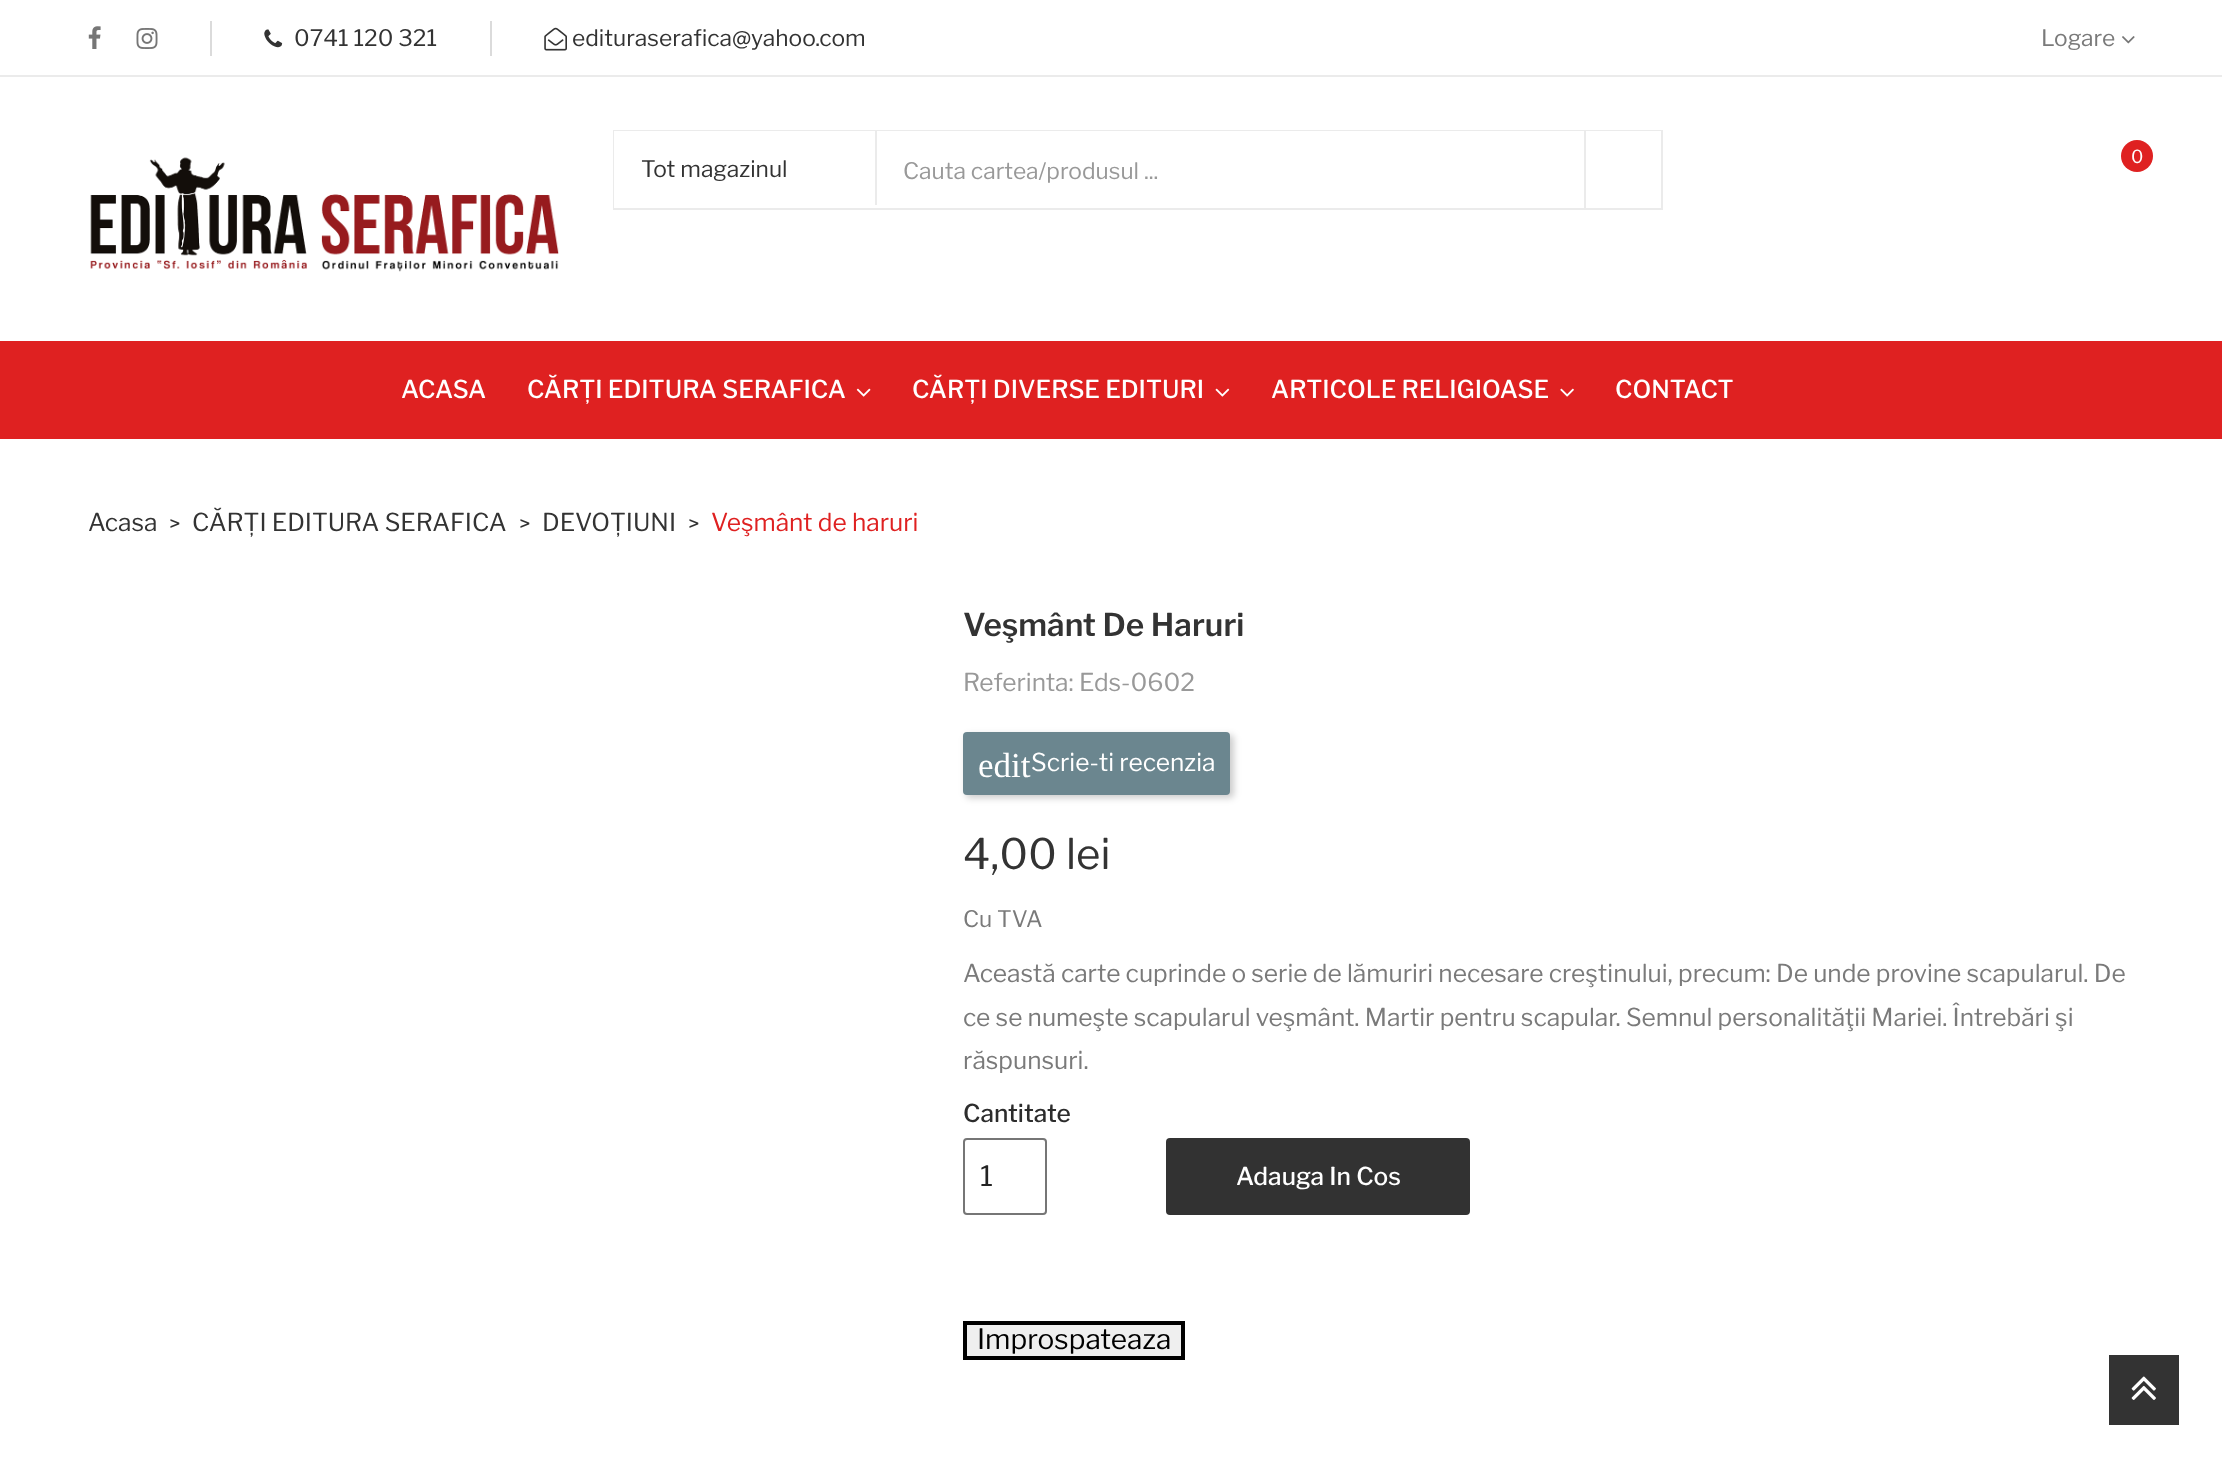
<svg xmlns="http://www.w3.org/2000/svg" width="2222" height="1468">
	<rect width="100%" height="100%" fill="#FFFFFF" />
	<rect x="0" y="75" width="2222" height="2" fill="#EBEBEB" />
	<rect x="210" y="21" width="2" height="35" fill="#DBDBDB" />
	<image x="88" y="26" width="13" height="23" href="assets/img1.png" />
	<image x="136" y="28" width="22" height="21" href="assets/img2.png" />
	<rect x="490" y="21" width="2" height="35" fill="#DBDBDB" />
	<image x="264" y="29" width="19" height="19" href="assets/img3.png" />
	<text x="294" y="46" font-family="Libre Franklin" font-size="22.75" fill="#333333">0741 120 321</text>
	<image x="544" y="27" width="23" height="24" href="assets/img4.png" />
	<text x="572" y="46" font-family="Libre Franklin" font-size="22.75" fill="#333333">edituraserafica@yahoo.com</text>
	<text x="2041" y="46" font-family="Libre Franklin" font-size="22.75" fill="#7A7A7A">Logare</text>
	<image x="2122" y="36" width="13" height="8" href="assets/img5.png" />
	<image x="90" y="157" width="469" height="115" href="assets/img6.png" />
	<circle cx="2137" cy="156" r="16" fill="#DF2121" />
	<text x="2131" y="163" font-family="Libre Franklin" font-size="18" fill="#FFFFFF">0</text>
	<rect x="614" y="131" width="1048" height="78" fill="none" stroke="#EBEBEB" stroke-width="2" />
	<rect x="614" y="131" width="1047" height="77" fill="#FFFFFF" />
	<rect x="875" y="131" width="2" height="74" fill="#EBEBEB" />
	<text x="641" y="177" font-family="Libre Franklin" font-size="22.75" fill="#333333">Tot magazinul</text>
	<text x="903" y="179" font-family="Libre Franklin" font-size="22.75" fill="#999999">Cauta cartea/produsul ...</text>
	<rect x="1584" y="130" width="2" height="80" fill="#EBEBEB" />
	<rect x="0" y="341" width="2222" height="98" fill="#DF2121" />
	<g font-family="Libre Franklin" font-size="24.5" font-weight="500" fill="#FFFFFF">
		<text x="401" y="398">ACASA</text>
		<text x="527" y="398">CĂRȚI EDITURA SERAFICA</text>
	</g>
	<image x="856" y="388" width="15" height="9" href="assets/img7.png" />
	<text x="912" y="398" font-family="Libre Franklin" font-size="24.5" font-weight="500" fill="#FFFFFF">CĂRȚI DIVERSE EDITURI</text>
	<image x="1215" y="388" width="15" height="9" href="assets/img8.png" />
	<text x="1271" y="398" font-family="Libre Franklin" font-size="24.5" font-weight="500" fill="#FFFFFF">ARTICOLE RELIGIOASE</text>
	<image x="1560" y="388" width="14" height="9" href="assets/img9.png" />
	<text x="1615" y="398" font-family="Libre Franklin" font-size="24.5" font-weight="500" fill="#FFFFFF">CONTACT</text>
	<text x="88" y="531" font-family="Libre Franklin" font-size="24.5" fill="#333333">Acasa</text>
	<text x="169" y="531" font-family="Libre Franklin" font-size="21" fill="#333333">&gt;</text>
	<text x="192" y="531" font-family="Libre Franklin" font-size="24.5" fill="#333333">CĂRȚI EDITURA SERAFICA</text>
	<text x="519" y="531" font-family="Libre Franklin" font-size="21" fill="#333333">&gt;</text>
	<text x="542" y="531" font-family="Libre Franklin" font-size="24.5" fill="#333333">DEVOȚIUNI</text>
	<text x="688" y="531" font-family="Libre Franklin" font-size="21" fill="#333333">&gt;</text>
	<text x="711" y="531" font-family="Libre Franklin" font-size="24.5" fill="#DF2121">Veşmânt de haruri</text>
	<text x="963" y="636" font-family="Libre Franklin" font-size="31.5" font-weight="600" fill="#333333">Veşmânt De Haruri</text>
	<text x="963" y="691" font-family="Libre Franklin" font-size="24.5" fill="#999999">Referinta: Eds-0602</text>
	<rect x="966" y="735" width="268" height="63" rx="4" fill="#000000" fill-opacity="0.2" filter="blur(3.5px)" />
	<rect x="963" y="732" width="267" height="63" rx="4" fill="#6B868F" />
	<text x="978" y="777" font-family="Liberation Serif" font-size="35" fill="#FFFFFF">edit</text>
	<text x="1031" y="771" font-family="Libre Franklin" font-size="24.5" fill="#FFFFFF">Scrie-ti recenzia</text>
	<text x="963" y="869" font-family="Libre Franklin" font-size="42" fill="#333333">4,00 lei</text>
	<text x="963" y="927" font-family="Libre Franklin" font-size="22.75" fill="#7A7A7A">Cu TVA</text>
	<g font-family="Libre Franklin" font-size="24.5" fill="#7A7A7A">
		<text x="963" y="982">Această carte cuprinde o serie de lămuriri necesare creştinului, precum: De unde provine scapularul. De</text>
		<text x="963" y="1026">ce se numeşte scapularul veşmânt. Martir pentru scapular. Semnul personalităţii Mariei. Întrebări şi</text>
		<text x="963" y="1069">răspunsuri.</text>
	</g>
	<text x="963" y="1122" font-family="Libre Franklin" font-size="24.5" font-weight="500" fill="#2C2C2C">Cantitate</text>
	<rect x="964" y="1139" width="82" height="75" rx="3" fill="none" stroke="#767676" stroke-width="2" />
	<text x="980" y="1186" font-family="Libre Franklin" font-size="28" fill="#232323">1</text>
	<rect x="1166" y="1138" width="304" height="77" rx="4" fill="#323232" />
	<text x="1236" y="1185" font-family="Libre Franklin" font-size="24.5" font-weight="500" fill="#FFFFFF">Adauga In Cos</text>
	<rect x="965" y="1323" width="218" height="35" fill="#EFEFEF" stroke="#000000" stroke-width="4" />
	<text x="977" y="1349" font-family="Libre Franklin" font-size="28" fill="#000000">Improspateaza</text>
	<rect x="2109" y="1355" width="70" height="70" fill="#333333" />
	<image x="2131" y="1376" width="25" height="24" href="assets/img10.png" />
</svg>
